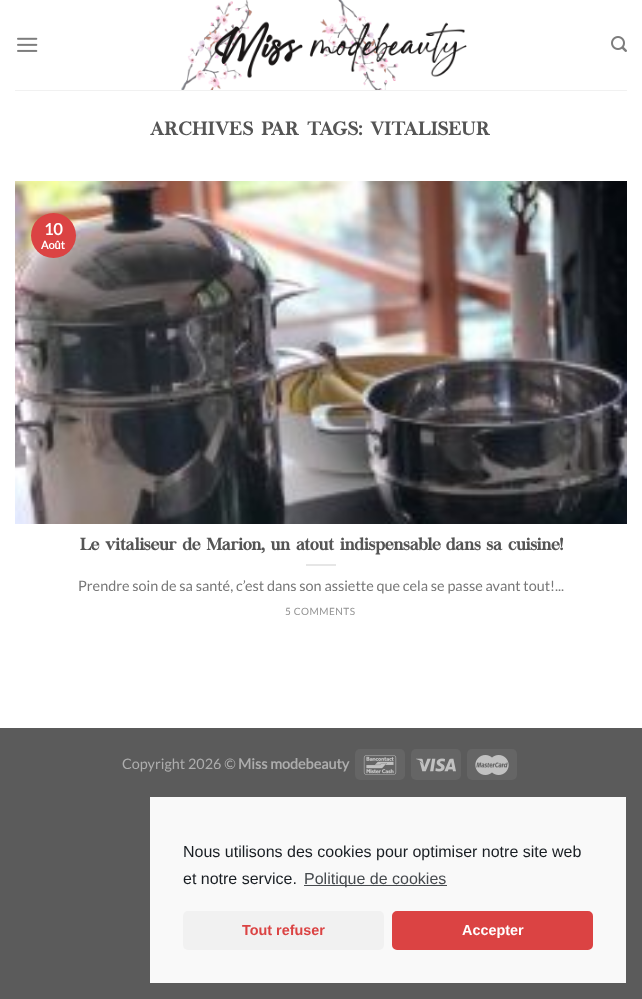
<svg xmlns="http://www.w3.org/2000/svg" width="642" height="999">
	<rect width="100%" height="100%" fill="#5B5B5B" />
	<rect x="0" y="0" width="642" height="728" fill="#FFFFFF" />
	<image x="17" y="37" width="21" height="15" href="assets/img1.png" />
	<image x="181" y="0" width="286" height="90" href="assets/img2.png" />
	<image x="611" y="36" width="16" height="16" href="assets/img3.png" />
	<rect x="15" y="90" width="612" height="1" fill="#F1F1F1" />
	<text x="150" y="135" font-family="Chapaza" font-size="18.4" font-weight="700" letter-spacing="0.9" fill="#555555">ARCHIVES PAR TAGS: VITALISEUR</text>
	<image x="15" y="181" width="612" height="343" href="assets/img4.png" />
	<circle cx="53.5" cy="235.5" r="22.5" fill="#DB4343" />
	<text x="44" y="235" font-family="Lato" font-size="16" font-weight="700" fill="#FFFFFF">10</text>
	<text x="41" y="249" font-family="Lato" font-size="11" font-weight="700" fill="#FFFFFF">Août</text>
	<g font-family="Chapaza" font-size="16.6" font-weight="700" fill="#555555">
		<text x="80" y="550">Le vitaliseur de Marion, un atout indispensable</text>
		<text x="446" y="550">dans sa cuisine!</text>
	</g>
	<rect x="306" y="564" width="30" height="2" fill="#E6E6E6" />
	<text x="78" y="591" font-family="Lato" font-size="14.4" fill="#777777">Prendre soin de sa santé, c’est dans son assiette que cela se passe avant tout!...</text>
	<text x="285" y="615" font-family="Lato" font-size="10" letter-spacing="0.5" fill="#929292">5 COMMENTS</text>
	<text x="122" y="769" font-family="Lato" font-size="14.4" fill="#ADADAD">Copyright 2026 ©</text>
	<text x="238" y="769" font-family="Lato" font-size="14.4" font-weight="700" fill="#ADADAD">Miss modebeauty</text>
	<rect x="355" y="749" width="50" height="31" rx="5" fill="#656565" />
	<image x="363" y="755" width="34" height="20" href="assets/img5.png" />
	<rect x="411" y="749" width="50" height="31" rx="5" fill="#656565" />
	<image x="416" y="758" width="40" height="14" href="assets/img6.png" />
	<rect x="467" y="749" width="50" height="31" rx="5" fill="#656565" />
	<image x="475" y="755" width="34" height="20" href="assets/img7.png" />
	<rect x="150" y="797" width="476" height="186" fill="#F9F9F9" />
	<g font-family="Liberation Sans" font-size="16" fill="#191E23">
		<text x="183" y="857">Nous utilisons des cookies pour optimiser notre site web</text>
		<text x="183" y="884">et notre service.</text>
	</g>
	<rect x="304" y="885" width="143" height="1" fill="#464A4E" />
	<text x="304" y="884" font-family="Liberation Sans" font-size="16" fill="#464A4E">Politique de cookies</text>
	<rect x="183" y="911" width="201" height="39" rx="5" fill="#F1F1F1" />
	<text x="242" y="935" font-family="Liberation Sans" font-size="14.4" font-weight="700" fill="#DB4343">Tout refuser</text>
	<rect x="393" y="912" width="199" height="37" rx="4" fill="#DB4343" stroke="#DB4343" stroke-width="2" />
	<text x="462" y="935" font-family="Liberation Sans" font-size="14.4" font-weight="700" fill="#FFFFFF">Accepter</text>
</svg>
